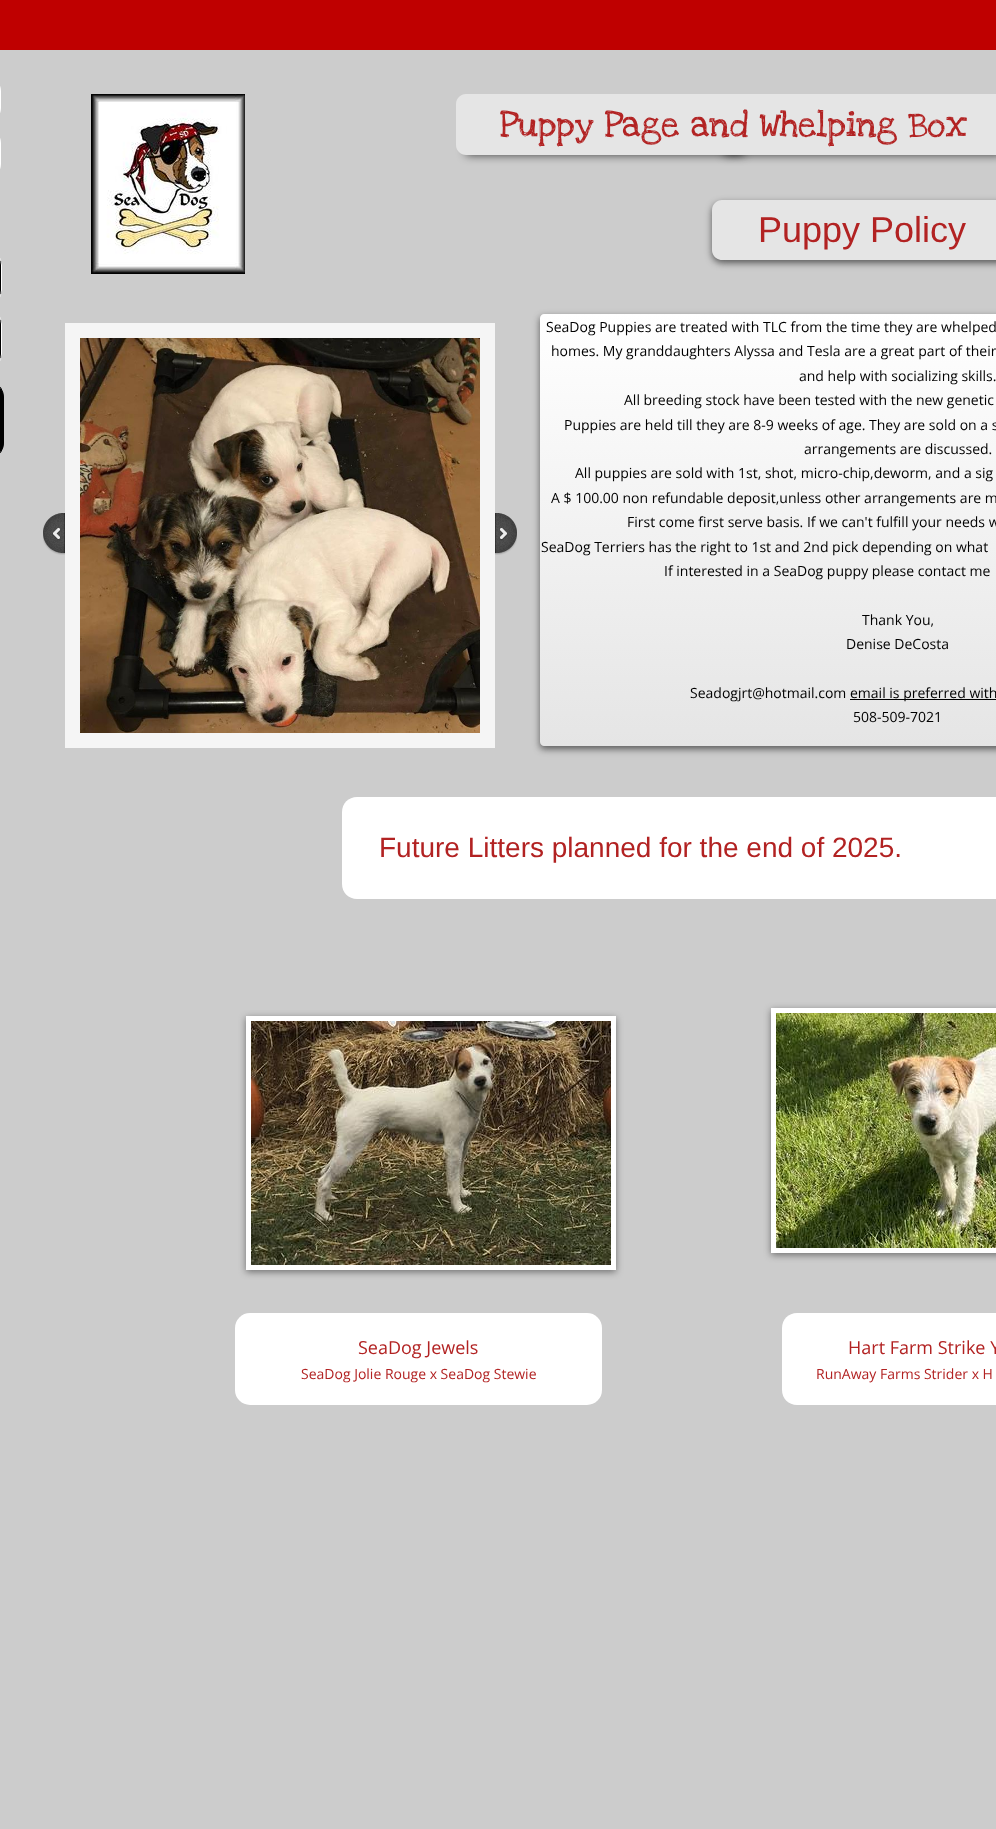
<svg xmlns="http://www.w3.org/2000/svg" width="996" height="1829">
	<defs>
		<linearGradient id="g1" gradientUnits="userSpaceOnUse" x1="898" y1="314" x2="898" y2="746"><stop offset="0" stop-color="#FFFFFF" /><stop offset="1" stop-color="#E5E5E5" /></linearGradient>
	</defs>
	<rect width="100%" height="100%" fill="#BF0000" />
	<rect x="0" y="50" width="996" height="1779" fill="#CCCCCC" />
	<rect x="-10.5" y="81.5" width="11" height="36" rx="9.5" fill="none" stroke="#FFFFFF" />
	<image x="91" y="94" width="154" height="180" href="assets/img1.png" />
	<rect x="466" y="143" width="278" height="12" fill="#000000" fill-opacity="0.7" filter="blur(5px)" />
	<rect x="724" y="143" width="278" height="12" fill="#000000" fill-opacity="0.7" filter="blur(5px)" />
	<path d="M466 94H996V155H466C460.5 155 456 150.5 456 145V104C456 98.5 460.5 94 466 94Z" fill="#E5E5E5" />
	<text x="500" y="136" font-family="Love Ya Like A Sister" font-size="36" fill="#B22222">Puppy Page and Whelping Box</text>
	<rect x="-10.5" y="133.5" width="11" height="40" rx="9.5" fill="none" stroke="#FFFFFF" />
	<rect x="712" y="203" width="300" height="60" rx="10" fill="#323232" fill-opacity="0.75" filter="blur(3.5px)" />
	<path d="M722 200H996V260H722C716.5 260 712 255.5 712 250V210C712 204.5 716.5 200 722 200Z" fill="#E5E5E5" />
	<text x="758" y="242" font-family="Liberation Sans" font-size="36" fill="#B22222">Puppy Policy</text>
	<path d="M0 255H-8C-2.5 255 2 259.5 2 265V290C2 295.5-2.5 300-8 300H0Z" fill="#000000" />
	<rect x="-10.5" y="255.5" width="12" height="44" rx="9.5" fill="none" stroke="#FFFFFF" />
	<path d="M0 314H-8C-2.5 314 2 318.5 2 324V354C2 359.5-2.5 364-8 364H0Z" fill="#000000" />
	<rect x="-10.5" y="314.5" width="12" height="49" rx="9.5" fill="none" stroke="#FFFFFF" />
	<image x="43" y="513" width="22" height="42" href="assets/img2.png" />
	<rect x="72.5" y="330.5" width="415" height="410" fill="none" stroke="#F5F5F5" stroke-width="15" />
	<image x="80" y="338" width="400" height="395" href="assets/img3.png" />
	<image x="495" y="513" width="22" height="42" href="assets/img4.png" />
	<rect x="540" y="317" width="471" height="432" rx="4" fill="#323232" fill-opacity="0.75" filter="blur(3.5px)" />
	<path d="M544 314H996V746H544C542 746 540 744 540 742V318C540 316 542 314 544 314Z" fill="url(#g1)" />
	<g font-family="Open Sans" font-size="14" fill="#000000">
		<text x="546" y="332">SeaDog Puppies are treated with TLC from the time they are whelped</text>
		<text x="551" y="356">homes. My granddaughters Alyssa and Tesla are a great part of their</text>
		<text x="799" y="381">and help with socializing skills.</text>
		<text x="624" y="405">All breeding stock have been tested with the new genetic</text>
		<text x="564" y="430">Puppies are held till they are 8-9 weeks of age. They are sold on a s</text>
		<text x="804" y="454">arrangements are discussed.</text>
		<text x="575" y="478">All puppies are sold with 1st, shot, micro-chip,deworm, and a sig</text>
		<text x="551" y="503">A $ 100.00 non refundable deposit,unless other arrangements are m</text>
		<text x="627" y="527">First come first serve basis. If we can't fulfill your needs w</text>
		<text x="541" y="552">SeaDog Terriers has the right to 1st and 2nd pick depending on what</text>
		<text x="664" y="576">If interested in a SeaDog puppy please contact me</text>
		<text x="862" y="625">Thank You,</text>
		<text x="846" y="649">Denise DeCosta</text>
		<text x="690" y="698">Seadogjrt@hotmail.com</text>
	</g>
	<rect x="850" y="699" width="146" height="1" fill="#000000" />
	<g font-family="Open Sans" font-size="14" fill="#000000">
		<text x="850" y="698">email is preferred with</text>
		<text x="853" y="722">508-509-7021</text>
	</g>
	<path d="M0 383H-11C-2.5 383 4 389.5 4 398V442C4 450.5-2.5 457-11 457H0Z" fill="#000000" />
	<rect x="-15.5" y="383.5" width="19" height="73" rx="14.5" fill="none" stroke="#000000" />
	<path d="M357 797H996V899H357C348.5 899 342 892.5 342 884V812C342 803.5 348.5 797 357 797Z" fill="#FFFFFF" />
	<text x="379" y="857" font-family="Liberation Sans" font-size="28" fill="#B22222">Future Litters planned for the end of 2025.</text>
	<rect x="246" y="1018" width="370" height="254" fill="#323232" fill-opacity="0.6" filter="blur(3.5px)" />
	<rect x="248.5" y="1018.5" width="365" height="249" fill="none" stroke="#FFFFFF" stroke-width="5" />
	<image x="251" y="1021" width="360" height="244" href="assets/img5.png" />
	<rect x="771" y="1010" width="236" height="245" fill="#323232" fill-opacity="0.6" filter="blur(3.5px)" />
	<rect x="773.5" y="1010.5" width="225" height="240" fill="none" stroke="#FFFFFF" stroke-width="5" />
	<image x="776" y="1013" width="220" height="235" href="assets/img6.png" />
	<rect x="235" y="1313" width="367" height="92" rx="15" fill="#FFFFFF" />
	<path d="M797 1313H996V1405H797C788.5 1405 782 1398.5 782 1390V1328C782 1319.5 788.5 1313 797 1313Z" fill="#FFFFFF" />
	<text x="358" y="1354" font-family="Open Sans" font-size="18" fill="#B22222">SeaDog Jewels</text>
	<text x="301" y="1379" font-family="Open Sans" font-size="14" fill="#B22222">SeaDog Jolie Rouge x SeaDog Stewie</text>
	<text x="848" y="1354" font-family="Open Sans" font-size="18" fill="#B22222">Hart Farm Strike Y</text>
	<text x="816" y="1379" font-family="Open Sans" font-size="14" fill="#B22222">RunAway Farms Strider x H</text>
</svg>
